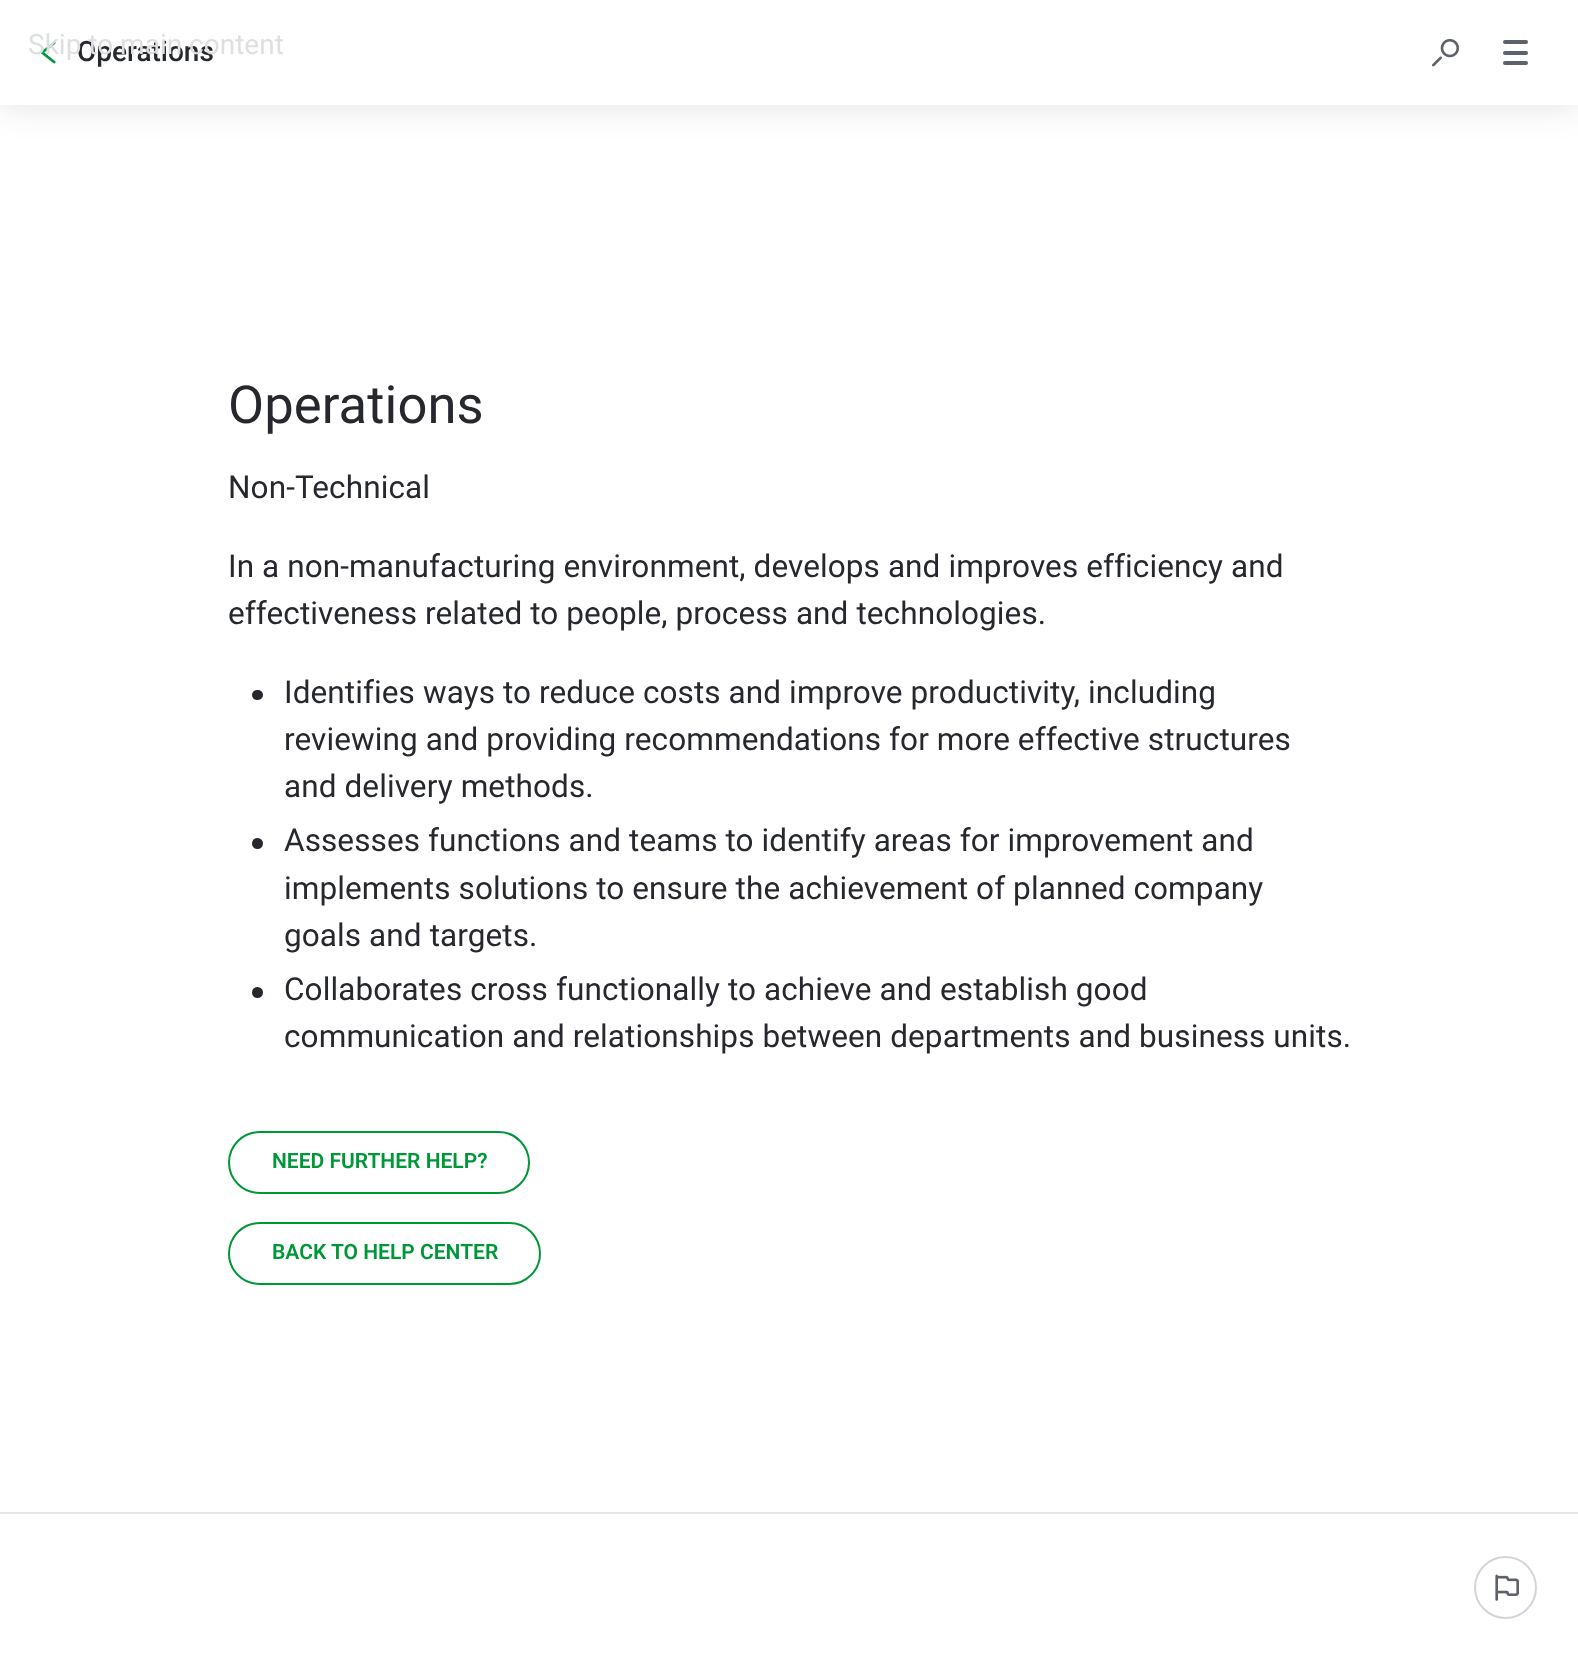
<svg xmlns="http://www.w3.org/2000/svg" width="1578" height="1658">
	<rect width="100%" height="100%" fill="#FFFFFF" />
	<rect x="0" y="0" width="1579" height="105" fill="#000000" fill-opacity="0.12" filter="blur(17.5px)" />
	<rect x="0" y="0" width="1578" height="105" fill="#FFFFFF" />
	<image x="40" y="41" width="16" height="23" href="assets/img1.png" />
	<text x="77" y="61" font-family="Roboto" font-size="28" font-weight="500" fill="#26282E">Operations</text>
	<text x="28" y="54" font-family="Roboto" font-size="28" fill="#DDE0DF">Skip to main content</text>
	<image x="1432" y="39" width="27" height="28" href="assets/img2.png" />
	<rect x="1503" y="40" width="25" height="4" rx="2" fill="#5D6169" />
	<rect x="1503" y="51" width="25" height="4" rx="2" fill="#5D6169" />
	<rect x="1503" y="61" width="25" height="4" rx="2" fill="#5D6169" />
	<text x="228" y="423" font-family="Roboto" font-size="52.5" letter-spacing="0.1" fill="#26282E">Operations</text>
	<g font-family="Roboto" font-size="31.5" letter-spacing="0.1" fill="#26282E">
		<text x="228" y="498">Non-Technical</text>
		<text x="228" y="577">In a non-manufacturing environment, develops and improves efficiency and</text>
		<text x="228" y="624">effectiveness related to people, process and technologies.</text>
	</g>
	<rect x="252" y="690" width="11" height="10" rx="5" fill="#26282E" />
	<g font-family="Roboto" font-size="31.5" letter-spacing="0.1" fill="#26282E">
		<text x="284" y="703">Identifies ways to reduce costs and improve productivity, including</text>
		<text x="284" y="750">reviewing and providing recommendations for more effective structures</text>
		<text x="284" y="797">and delivery methods.</text>
	</g>
	<circle cx="257.5" cy="843.5" r="5.5" fill="#26282E" />
	<g font-family="Roboto" font-size="31.5" letter-spacing="0.1" fill="#26282E">
		<text x="284" y="851">Assesses functions and teams to identify areas for improvement and</text>
		<text x="284" y="899">implements solutions to ensure the achievement of planned company</text>
		<text x="284" y="946">goals and targets.</text>
	</g>
	<circle cx="257.5" cy="992.5" r="5.5" fill="#26282E" />
	<g font-family="Roboto" font-size="31.5" letter-spacing="0.1" fill="#26282E">
		<text x="284" y="1000">Collaborates cross functionally to achieve and establish good</text>
		<text x="284" y="1047">communication and relationships between departments and business units.</text>
	</g>
	<rect x="229" y="1132" width="300" height="61" rx="30.5" fill="none" stroke="#009739" stroke-width="2" />
	<text x="272" y="1168" font-family="Roboto" font-size="21" font-weight="600" fill="#009739">NEED FURTHER HELP?</text>
	<rect x="229" y="1223" width="311" height="61" rx="30.5" fill="none" stroke="#009739" stroke-width="2" />
	<text x="272" y="1259" font-family="Roboto" font-size="21" font-weight="600" fill="#009739">BACK TO HELP CENTER</text>
	<rect x="0" y="1512" width="1578" height="2" fill="#E3E5E9" />
	<circle cx="1505.5" cy="1587.5" r="30.5" fill="none" stroke="#D3D5DA" stroke-width="2" />
	<image x="1495" y="1574" width="24" height="27" href="assets/img3.png" />
</svg>
